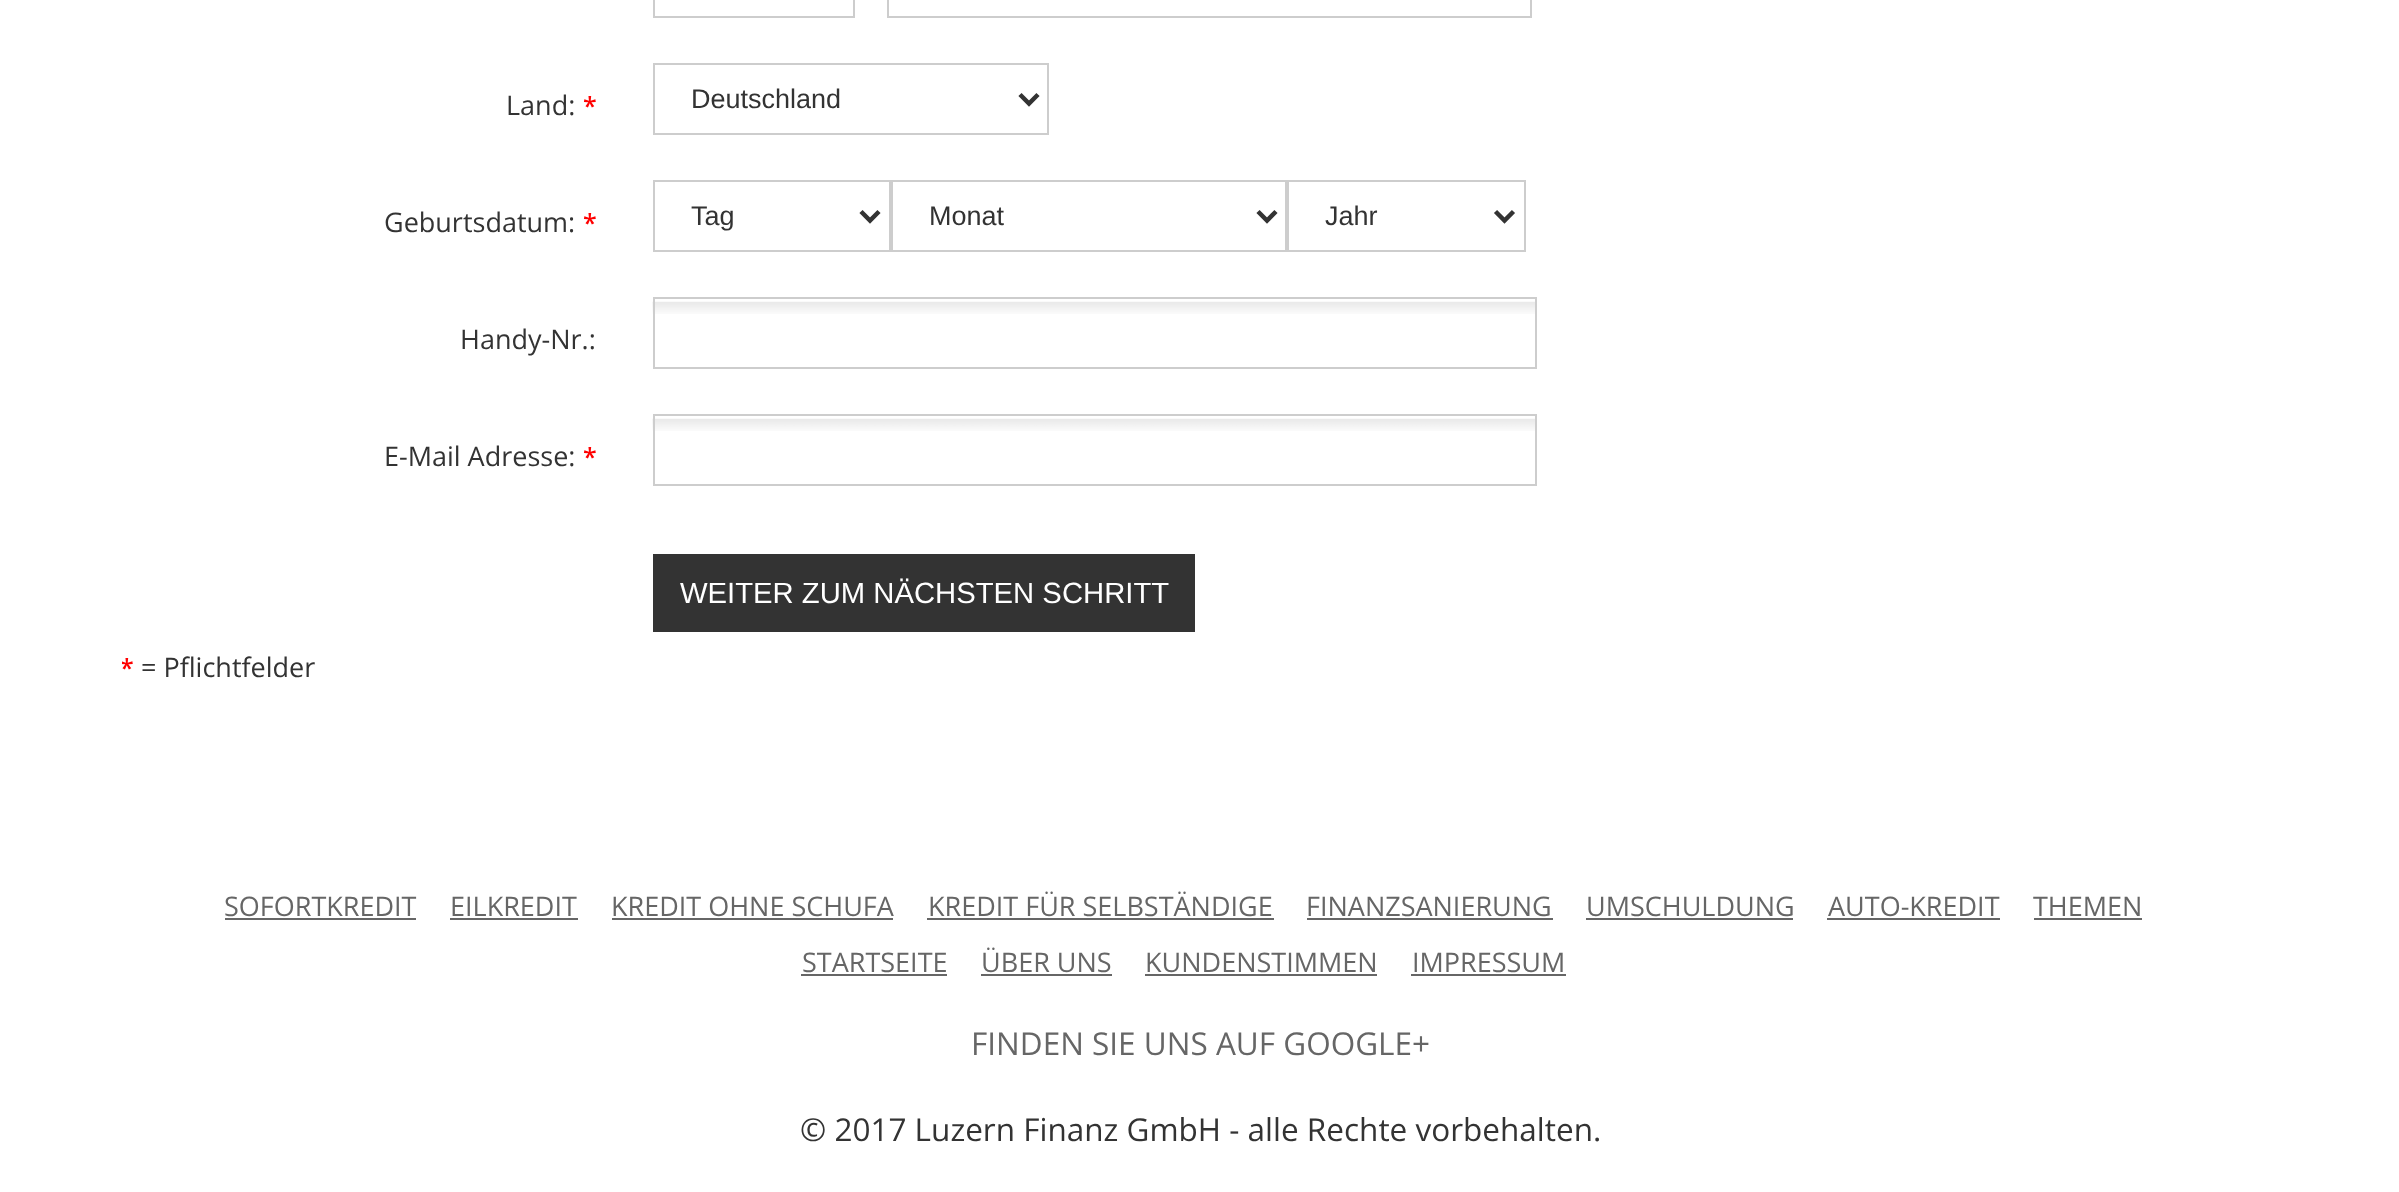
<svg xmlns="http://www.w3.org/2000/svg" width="2399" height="1192">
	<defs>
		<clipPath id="clip1"><rect x="122" y="0" width="1631" height="720" /></clipPath>
	</defs>
	<rect width="100%" height="100%" fill="#FFFFFF" />
	<rect x="654" y="-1" width="200" height="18" fill="none" stroke="#CDCDCD" stroke-width="2" />
	<rect x="888" y="-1" width="643" height="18" fill="none" stroke="#CDCDCD" stroke-width="2" />
	<text x="506" y="115" font-family="Open Sans" font-size="27" fill="#333333">Land:</text>
	<text x="583" y="115" font-family="Open Sans" font-size="25" font-weight="600" fill="#FF0000">*</text>
	<rect x="654" y="64" width="394" height="70" fill="none" stroke="#CDCDCD" stroke-width="2" />
	<path d="M1020 94.5L1029 103.5L1038 94.5" fill="none" stroke="#333333" stroke-width="4.5" />
	<text x="691" y="108" font-family="Liberation Sans" font-size="27" fill="#333333">Deutschland</text>
	<text x="384" y="232" font-family="Open Sans" font-size="27" fill="#333333">Geburtsdatum:</text>
	<text x="583" y="232" font-family="Open Sans" font-size="25" font-weight="600" fill="#FF0000">*</text>
	<rect x="654" y="181" width="236" height="70" fill="none" stroke="#CDCDCD" stroke-width="2" />
	<path d="M861 211.5L870 220.5L879 211.5" fill="none" stroke="#333333" stroke-width="4.5" />
	<text x="691" y="225" font-family="Liberation Sans" font-size="27" fill="#333333">Tag</text>
	<rect x="892" y="181" width="394" height="70" fill="none" stroke="#CDCDCD" stroke-width="2" />
	<path d="M1258 211.5L1267 220.5L1276 211.5" fill="none" stroke="#333333" stroke-width="4.5" />
	<text x="929" y="225" font-family="Liberation Sans" font-size="27" fill="#333333">Monat</text>
	<rect x="1288" y="181" width="237" height="70" fill="none" stroke="#CDCDCD" stroke-width="2" />
	<path d="M1495.5 211.5L1504.5 220.5L1513.5 211.5" fill="none" stroke="#333333" stroke-width="4.5" />
	<text x="1325" y="225" font-family="Liberation Sans" font-size="27" fill="#333333">Jahr</text>
	<text x="460" y="349" font-family="Open Sans" font-size="27" fill="#333333">Handy-Nr.:</text>
	<image x="652" y="301" width="883" height="13" href="assets/img1.png" />
	<rect x="654" y="298" width="882" height="70" fill="none" stroke="#CDCDCD" stroke-width="2" />
	<text x="384" y="466" font-family="Open Sans" font-size="27" fill="#333333">E-Mail Adresse:</text>
	<text x="583" y="466" font-family="Open Sans" font-size="25" font-weight="600" fill="#FF0000">*</text>
	<image x="652" y="418" width="883" height="13" href="assets/img2.png" />
	<rect x="654" y="415" width="882" height="70" fill="none" stroke="#CDCDCD" stroke-width="2" />
	<rect x="653" y="554" width="542" height="78" fill="#333333" />
	<text x="680" y="603" font-family="Liberation Sans" font-size="29.25" fill="#FFFFFF">WEITER ZUM NÄCHSTEN SCHRITT</text>
	<g clip-path="url(#clip1)">
		<text x="120" y="677" font-family="Open Sans" font-size="25" font-weight="600" fill="#FF0000">*</text>
	</g>
	<text x="141" y="677" font-family="Open Sans" font-size="27" fill="#333333">= Pflichtfelder</text>
	<text x="224" y="916" font-family="Open Sans" font-size="27" fill="#666666">SOFORTKREDIT</text>
	<rect x="225" y="918" width="191" height="2" fill="#666666" />
	<text x="450" y="916" font-family="Open Sans" font-size="27" fill="#666666">EILKREDIT</text>
	<rect x="450" y="918" width="128" height="2" fill="#666666" />
	<text x="611" y="916" font-family="Open Sans" font-size="27" fill="#666666">KREDIT OHNE SCHUFA</text>
	<rect x="612" y="918" width="281" height="2" fill="#666666" />
	<text x="928" y="916" font-family="Open Sans" font-size="27" fill="#666666">KREDIT FÜR SELBSTÄNDIGE</text>
	<rect x="927" y="918" width="347" height="2" fill="#666666" />
	<text x="1306" y="916" font-family="Open Sans" font-size="27" fill="#666666">FINANZSANIERUNG</text>
	<rect x="1307" y="918" width="246" height="2" fill="#666666" />
	<text x="1586" y="916" font-family="Open Sans" font-size="27" fill="#666666">UMSCHULDUNG</text>
	<rect x="1586" y="918" width="207" height="2" fill="#666666" />
	<text x="1828" y="916" font-family="Open Sans" font-size="27" fill="#666666">AUTO-KREDIT</text>
	<rect x="1827" y="918" width="173" height="2" fill="#666666" />
	<text x="2033" y="916" font-family="Open Sans" font-size="27" fill="#666666">THEMEN</text>
	<rect x="2034" y="918" width="108" height="2" fill="#666666" />
	<text x="802" y="972" font-family="Open Sans" font-size="27" fill="#666666">STARTSEITE</text>
	<rect x="801" y="974" width="146" height="2" fill="#666666" />
	<text x="981" y="972" font-family="Open Sans" font-size="27" fill="#666666">ÜBER UNS</text>
	<rect x="981" y="974" width="131" height="2" fill="#666666" />
	<text x="1145" y="972" font-family="Open Sans" font-size="27" fill="#666666">KUNDENSTIMMEN</text>
	<rect x="1145" y="974" width="232" height="2" fill="#666666" />
	<text x="1412" y="972" font-family="Open Sans" font-size="27" fill="#666666">IMPRESSUM</text>
	<rect x="1411" y="974" width="155" height="2" fill="#666666" />
	<text x="971" y="1055" font-family="Open Sans" font-size="31.5" fill="#666666">FINDEN SIE UNS AUF GOOGLE+</text>
	<text x="800" y="1141" font-family="Open Sans" font-size="31.5" fill="#333333">© 2017 Luzern Finanz GmbH - alle Rechte vorbehalten.</text>
</svg>
